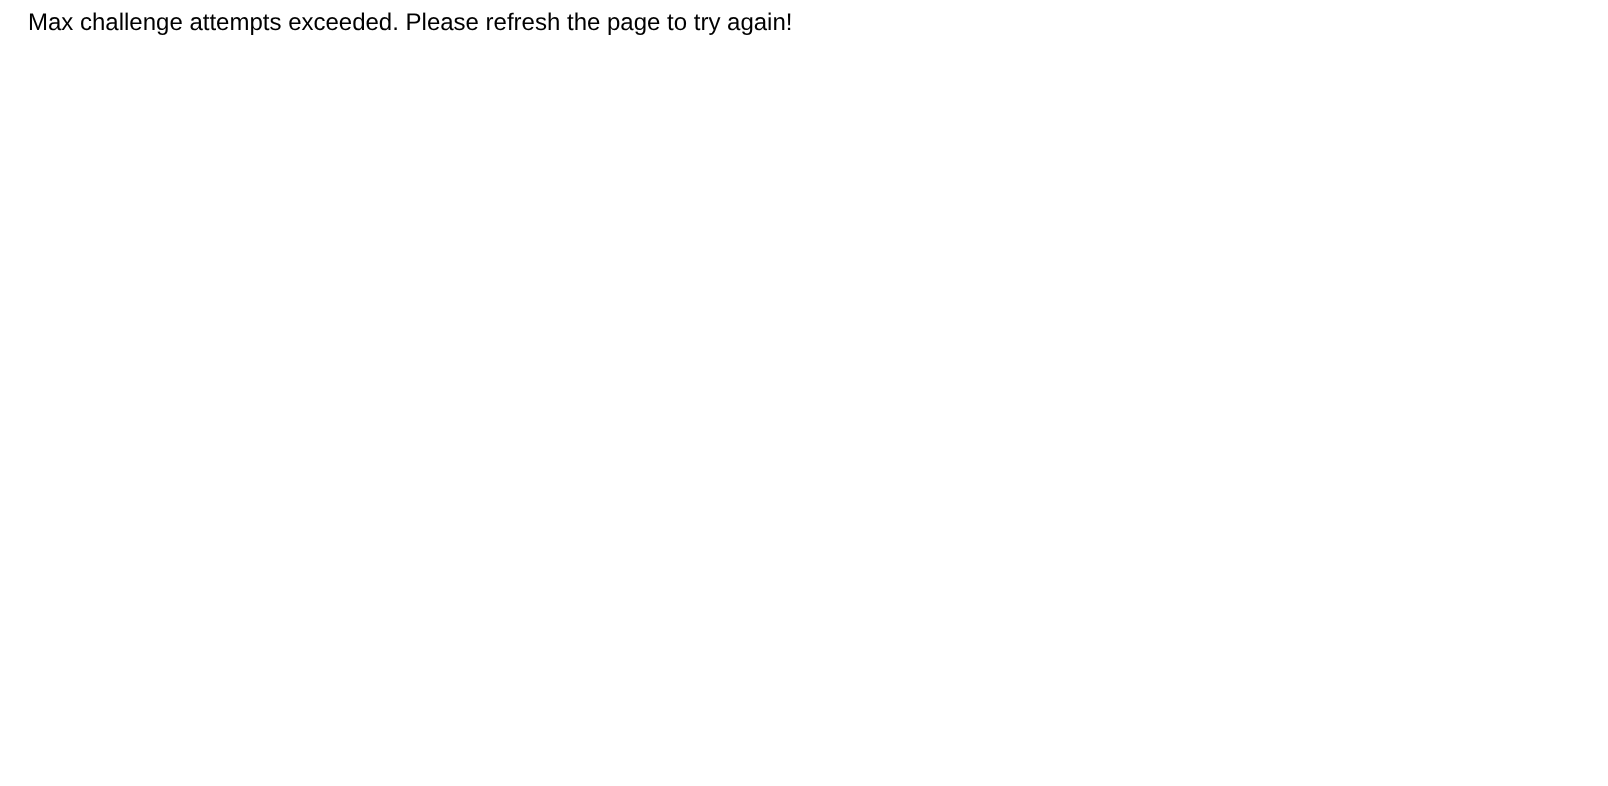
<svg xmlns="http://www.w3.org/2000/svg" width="1608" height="786">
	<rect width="100%" height="100%" fill="#FFFFFF" />
	<text x="28" y="30" font-family="Liberation Sans" font-size="24" fill="#000000">Max challenge attempts exceeded. Please refresh the page to try again!</text>
</svg>
